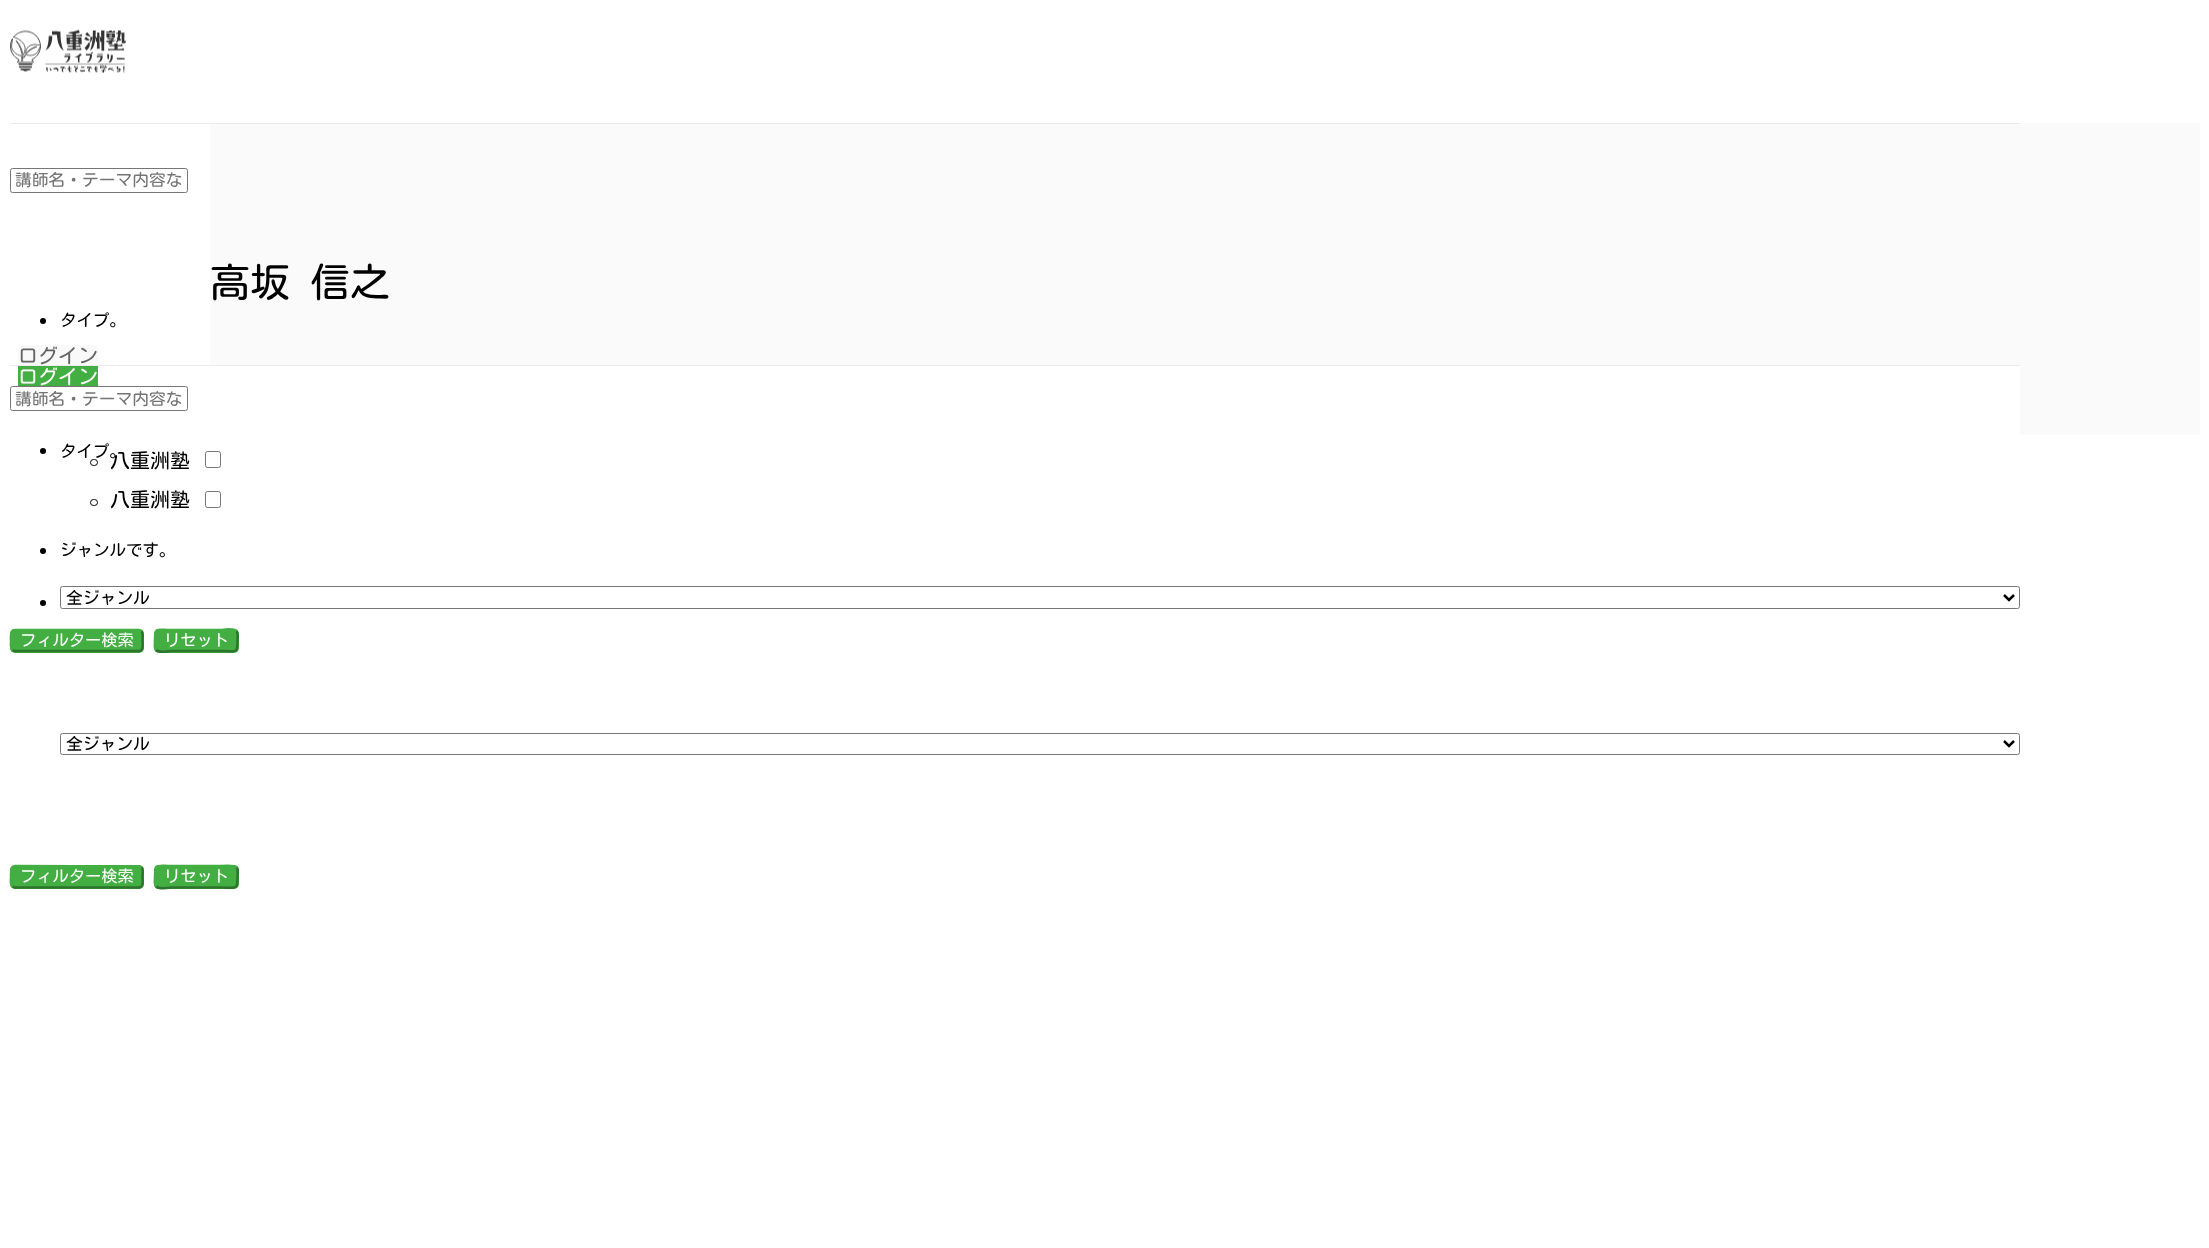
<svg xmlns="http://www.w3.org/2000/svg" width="2209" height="1248">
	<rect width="100%" height="100%" fill="#FFFFFF" />
	<rect x="210" y="123" width="1990" height="312" fill="#FAFAFA" />
	<rect x="10" y="123" width="2010" height="1" fill="#EBEBEB" />
	<image x="10" y="29" width="116" height="44" href="assets/img1.png" />
	<rect x="10.5" y="168.5" width="177" height="24" rx="2" fill="none" stroke="#767676" />
	<text x="15" y="186" font-family="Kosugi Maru" font-size="16.75" fill="#757575">講師名・テーマ内容な</text>
	<circle cx="43" cy="321" r="3" fill="#000000" />
	<text x="60" y="326" font-family="Kosugi Maru" font-size="16.5" fill="#000000">タイプ。</text>
	<rect x="90.5" y="459.5" width="7" height="6" rx="3" fill="none" stroke="#000000" />
	<text x="110" y="468" font-family="Kosugi Maru" font-size="20" fill="#000000">八重洲塾</text>
	<rect x="205.5" y="451.5" width="15" height="16" rx="2" fill="none" stroke="#767676" />
	<circle cx="43" cy="603" r="3" fill="#000000" />
	<rect x="60.5" y="733.5" width="1959" height="21" rx="2" fill="none" stroke="#767676" />
	<path d="M2004 741L2009 746L2014 741" fill="none" stroke="#000000" stroke-width="2.5" />
	<text x="66" y="750" font-family="Kosugi Maru" font-size="16.75" fill="#000000">全ジャンル</text>
	<rect x="10" y="865" width="134" height="24" rx="5" fill="#43AF43" />
	<path d="M141.5 867.5C143.5 869.5 142.5 874 142.5 877C142.5 880 144 887.5 139 887.5H14.5L12.5 886.5" fill="none" stroke="#2D752D" stroke-width="2.5" />
	<path d="M12.5 886.5C10 884 11 879.5 11 877C11 874 10 866.5 15 866L139 866.5L141.5 867.5" fill="none" stroke="#43AF43" stroke-width="2.5" />
	<text x="20" y="882" font-family="Kosugi Maru" font-size="16.25" fill="#FFFFFF">フィルター検索</text>
	<rect x="154" y="865" width="85" height="24" rx="5" fill="#43AF43" />
	<path d="M236.5 867.5C238.5 869.5 237.5 874 237.5 877C237.5 890.5 236.5 887.5 221 887.5H171C171 887.5 159 889.5 156 886.5" fill="none" stroke="#2D752D" stroke-width="2.5" />
	<path d="M156 886.5C154 884 155 879.5 155 877C155 863 156 866 171 866H221C221.5 866 233.5 864.5 236.5 867.5" fill="none" stroke="#43AF43" stroke-width="2.5" />
	<text x="164" y="882" font-family="Kosugi Maru" font-size="16.25" fill="#FFFFFF">リセット</text>
	<rect x="18" y="345" width="80" height="20" rx="5" fill="#F9F9F9" />
	<text x="18" y="363" font-family="Kosugi Maru" font-size="20" fill="#666666">ログイン</text>
	<rect x="210" y="366" width="1810" height="69" fill="#FFFFFF" />
	<rect x="10" y="365" width="2010" height="1" fill="#EBEBEB" />
	<rect x="18" y="366" width="80" height="20" fill="#43AF43" />
	<text x="18" y="384" font-family="Kosugi Maru" font-size="20" fill="#FFFFFF">ログイン</text>
	<rect x="10.5" y="386.5" width="177" height="24" rx="2" fill="none" stroke="#767676" />
	<text x="15" y="405" font-family="Kosugi Maru" font-size="16.75" fill="#757575">講師名・テーマ内容な</text>
	<circle cx="43" cy="451" r="3" fill="#000000" />
	<text x="60" y="457" font-family="Kosugi Maru" font-size="16.5" fill="#000000">タイプ。</text>
	<rect x="90.5" y="499.5" width="7" height="6" rx="3" fill="none" stroke="#000000" />
	<text x="110" y="507" font-family="Kosugi Maru" font-size="20" fill="#000000">八重洲塾</text>
	<rect x="205.5" y="491.5" width="15" height="16" rx="2" fill="none" stroke="#767676" />
	<circle cx="43" cy="551" r="3" fill="#000000" />
	<text x="60" y="556" font-family="Kosugi Maru" font-size="16.5" fill="#000000">ジャンルです。</text>
	<rect x="60.5" y="586.5" width="1959" height="22" rx="2" fill="none" stroke="#767676" />
	<path d="M2004 595L2009 600L2014 595" fill="none" stroke="#000000" stroke-width="2.5" />
	<text x="66" y="604" font-family="Kosugi Maru" font-size="16.75" fill="#000000">全ジャンル</text>
	<rect x="10" y="629" width="134" height="24" rx="5" fill="#43AF43" />
	<path d="M141.5 631C143.5 633.5 142.5 638 142.5 640.5C142.5 643.5 144 651 139 651H14.5L12.5 650" fill="none" stroke="#2D752D" stroke-width="2.5" />
	<path d="M12.5 650C10 648 11 643.5 11 640.5C11 637.5 10 630 15 630H139L141.5 631" fill="none" stroke="#43AF43" stroke-width="2.5" />
	<text x="20" y="646" font-family="Kosugi Maru" font-size="16.25" fill="#FFFFFF">フィルター検索</text>
	<rect x="154" y="629" width="85" height="24" rx="5" fill="#43AF43" />
	<path d="M236.5 631C238.5 633.5 237.5 638 237.5 640.5C237.5 654.5 236.5 651 221 651H171C171 651 159 653 156 650" fill="none" stroke="#2D752D" stroke-width="2.5" />
	<path d="M156 650C154 648 155 643.5 155 640.5C155 627 156 630 171 630H221C221.5 630 233.5 628 236.5 631" fill="none" stroke="#43AF43" stroke-width="2.5" />
	<text x="164" y="646" font-family="Kosugi Maru" font-size="16.25" fill="#FFFFFF">リセット</text>
	<text x="210" y="297" font-family="Kosugi Maru" font-size="40" fill="#000000">高坂 信之</text>
</svg>
